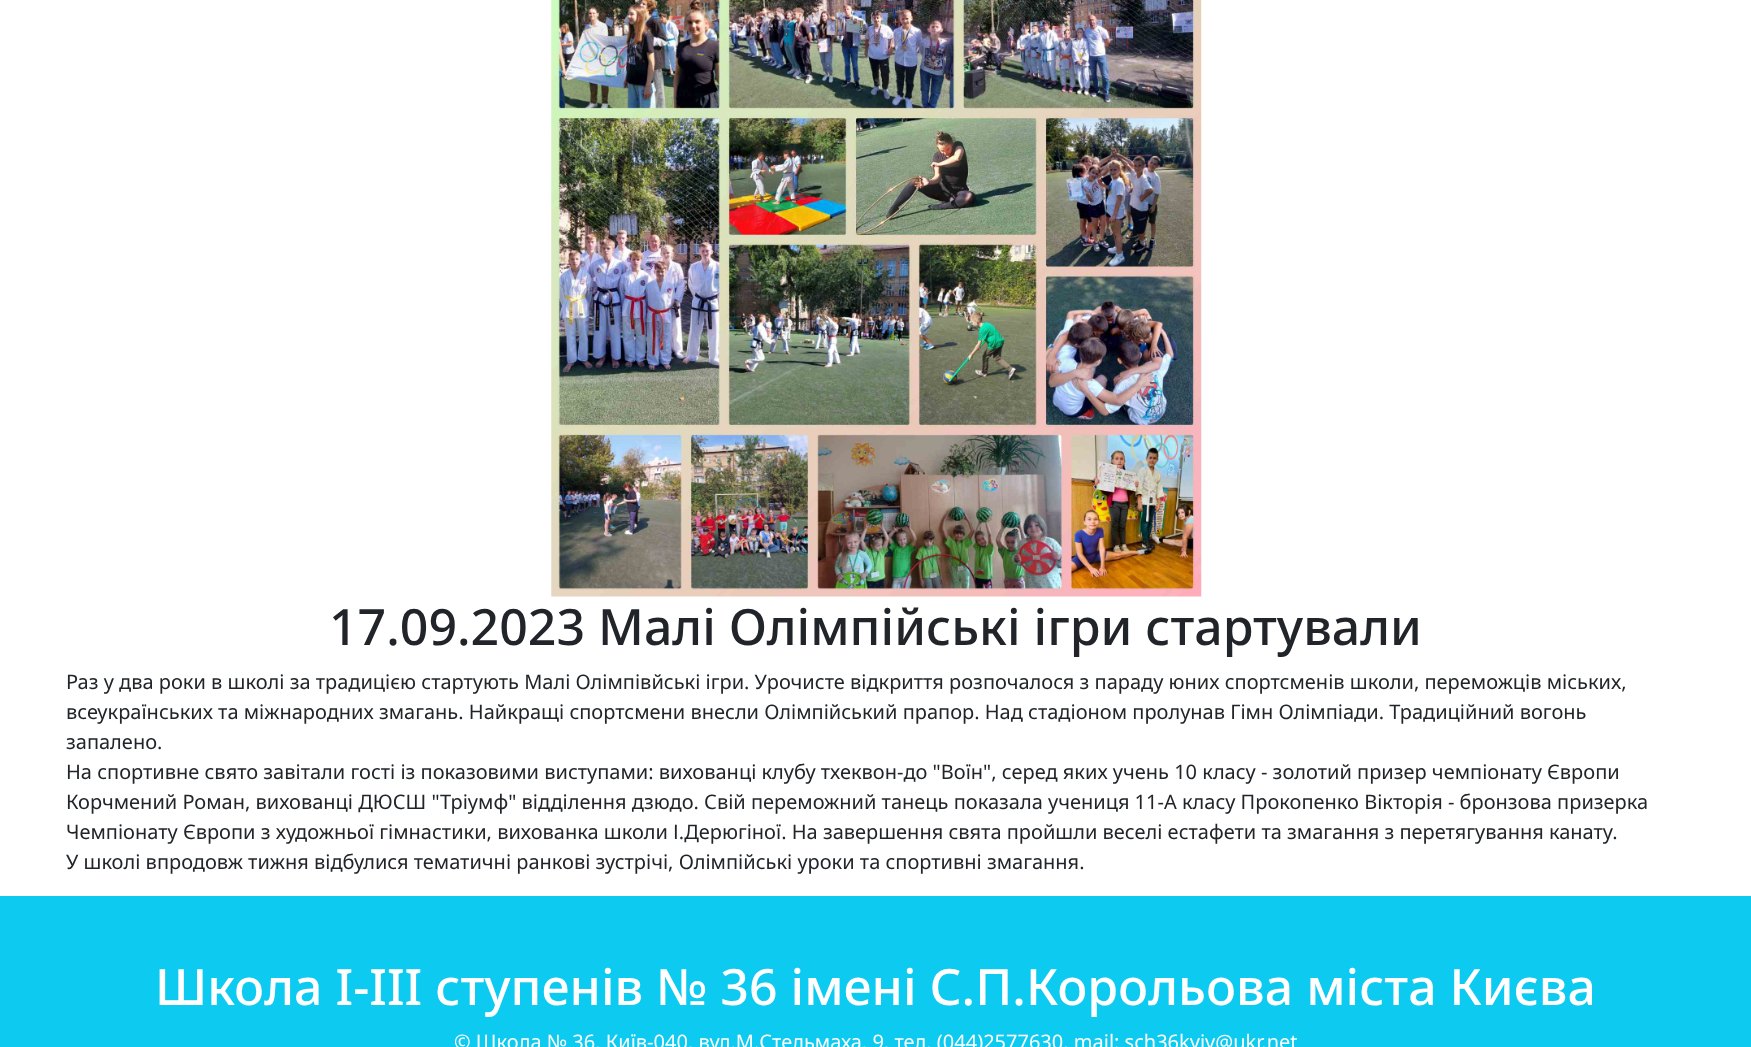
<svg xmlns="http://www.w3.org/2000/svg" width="1751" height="1047">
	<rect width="100%" height="100%" fill="#FFFFFF" />
	<image x="551" y="0" width="651" height="597" href="assets/img1.png" />
	<text x="329" y="645" font-family="Noto Sans" font-size="50" font-weight="500" fill="#212529">17.09.2023 Малі Олімпійські ігри стартували</text>
	<g font-family="Noto Sans" font-size="20" fill="#212529">
		<text x="66" y="689">Раз у два роки в школі за традицією стартують Малі Олімпівйські ігри. Урочисте відкриття розпочалося з параду юних спортсменів школи, переможців міських,</text>
		<text x="66" y="719">всеукраїнських та міжнародних змагань. Найкращі спортсмени внесли Олімпійський прапор. Над стадіоном пролунав Гімн Олімпіади. Традиційний вогонь</text>
		<text x="66" y="749">запалено.</text>
		<text x="66" y="779">На спортивне свято завітали гості із показовими виступами: вихованці клубу тхеквон-до "Воїн", серед яких учень 10 класу - золотий призер чемпіонату Європи</text>
		<text x="66" y="809">Корчмений Роман, вихованці ДЮСШ "Тріумф" відділення дзюдо. Свій переможний танець показала учениця 11-А класу Прокопенко Вікторія - бронзова призерка</text>
		<text x="66" y="839">Чемпіонату Європи з художньої гімнастики, вихованка школи І.Дерюгіної. На завершення свята пройшли веселі естафети та змагання з перетягування канату.</text>
		<text x="66" y="869">У школі впродовж тижня відбулися тематичні ранкові зустрічі, Олімпійські уроки та спортивні змагання.</text>
	</g>
	<rect x="0" y="896" width="1751" height="151" fill="#0DCAF0" />
	<text x="155" y="1005" font-family="Noto Sans" font-size="50" font-weight="500" fill="#FFFFFF">Школа I-III ступенів № 36 імені С.П.Корольова міста Києва</text>
	<text x="454" y="1049" font-family="Noto Sans" font-size="20" fill="#FFFFFF">© Школа № 36. Київ-040, вул.М.Стельмаха, 9, тел. (044)2577630, mail: sch36kyiv@ukr.net</text>
</svg>
